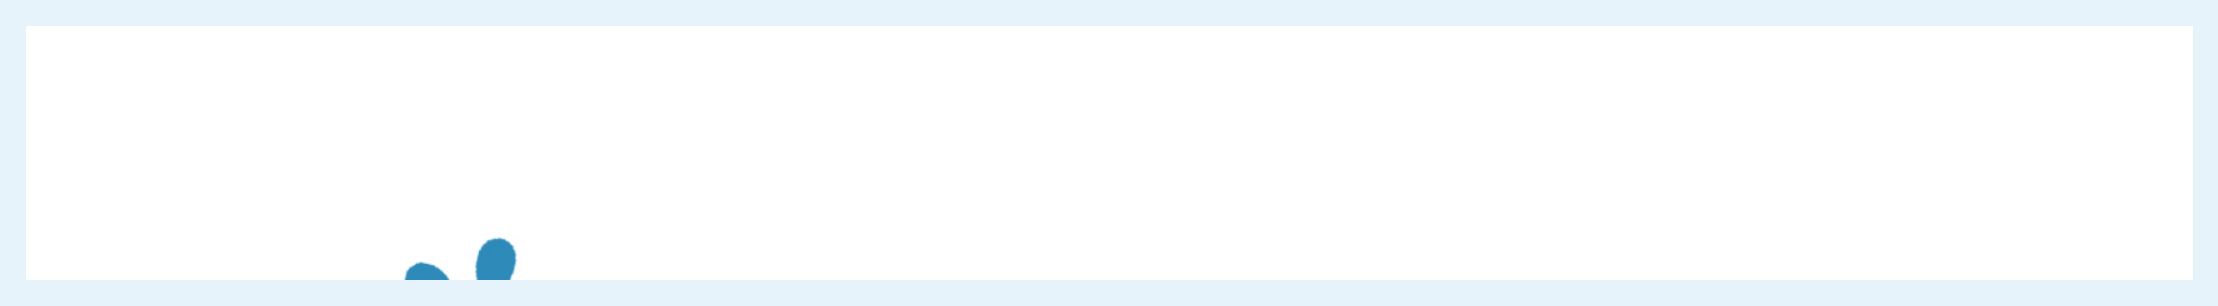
<svg xmlns="http://www.w3.org/2000/svg" width="2218" height="306">
	<rect width="100%" height="100%" fill="#E6F3FB" />
	<rect x="26" y="26" width="2167" height="254" fill="#FFFFFF" />
	<image x="403" y="237" width="254" height="43" href="assets/img1.png" />
</svg>
